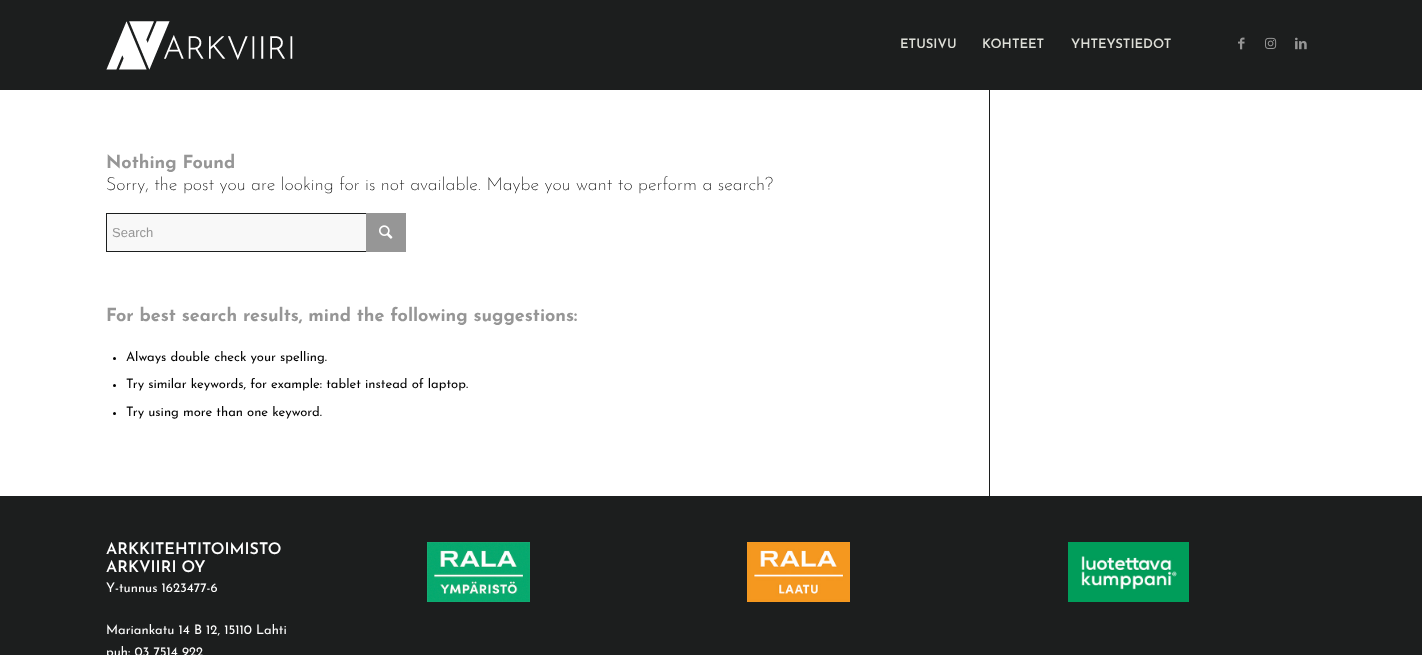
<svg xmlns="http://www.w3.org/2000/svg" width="1422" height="655">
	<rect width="100%" height="100%" fill="#1C1E1E" />
	<image x="106" y="21" width="187" height="49" href="assets/img1.png" />
	<g font-family="Josefin Sans" font-size="13" font-weight="600" fill="#DEDFD8">
		<text x="900" y="48">ETUSIVU</text>
		<text x="982" y="48">KOHTEET</text>
		<text x="1071" y="48">YHTEYSTIEDOT</text>
	</g>
	<image x="1238" y="37" width="7" height="13" href="assets/img2.png" />
	<image x="1265" y="37" width="12" height="12" href="assets/img3.png" />
	<image x="1295" y="37" width="12" height="13" href="assets/img4.png" />
	<rect x="0" y="90" width="1422" height="406" fill="#FFFFFF" />
	<rect x="989" y="89" width="1" height="407" fill="#1C1E1E" />
	<text x="106" y="168" font-family="Josefin Sans" font-size="18" font-weight="700" fill="#969696">Nothing Found</text>
	<text x="106" y="190" font-family="Josefin Sans" font-size="18" font-weight="200" fill="#000000">Sorry, the post you are looking for is not available. Maybe you want to perform a search?</text>
	<rect x="107" y="214" width="259" height="37" fill="#F8F8F8" />
	<rect x="106.5" y="213.5" width="299" height="38" fill="none" stroke="#1C1E1E" />
	<text x="112" y="237" font-family="Liberation Sans" font-size="13" fill="#969696">Search</text>
	<rect x="366" y="213" width="40" height="39" fill="#969696" />
	<image x="379" y="225" width="14" height="14" href="assets/img5.png" />
	<text x="106" y="321" font-family="Josefin Sans" font-size="18" font-weight="700" fill="#969696">For best search results, mind the following suggestions:</text>
	<circle cx="114.5" cy="358.5" r="1.5" fill="#000000" />
	<text x="126" y="361" font-family="Josefin Sans" font-size="13" fill="#000000">Always double check your spelling.</text>
	<circle cx="114.5" cy="385.5" r="1.5" fill="#000000" />
	<text x="126" y="388" font-family="Josefin Sans" font-size="13" fill="#000000">Try similar keywords, for example: tablet instead of laptop.</text>
	<circle cx="114.5" cy="413.5" r="1.5" fill="#000000" />
	<text x="126" y="416" font-family="Josefin Sans" font-size="13" fill="#000000">Try using more than one keyword.</text>
	<g font-family="Josefin Sans" font-size="16" font-weight="600" fill="#FFFFFF">
		<text x="106" y="554">ARKKITEHTITOIMISTO</text>
		<text x="106" y="572">ARKVIIRI OY</text>
	</g>
	<g font-family="Josefin Sans" font-size="13" fill="#FFFFFF">
		<text x="106" y="592">Y-tunnus 1623477-6</text>
		<text x="106" y="634">Mariankatu 14 B 12, 15110 Lahti</text>
		<text x="106" y="656">puh: 03 7514 922</text>
	</g>
	<image x="427" y="542" width="103" height="60" href="assets/img6.png" />
	<image x="747" y="542" width="103" height="60" href="assets/img7.png" />
	<image x="1068" y="542" width="121" height="60" href="assets/img8.png" />
</svg>
